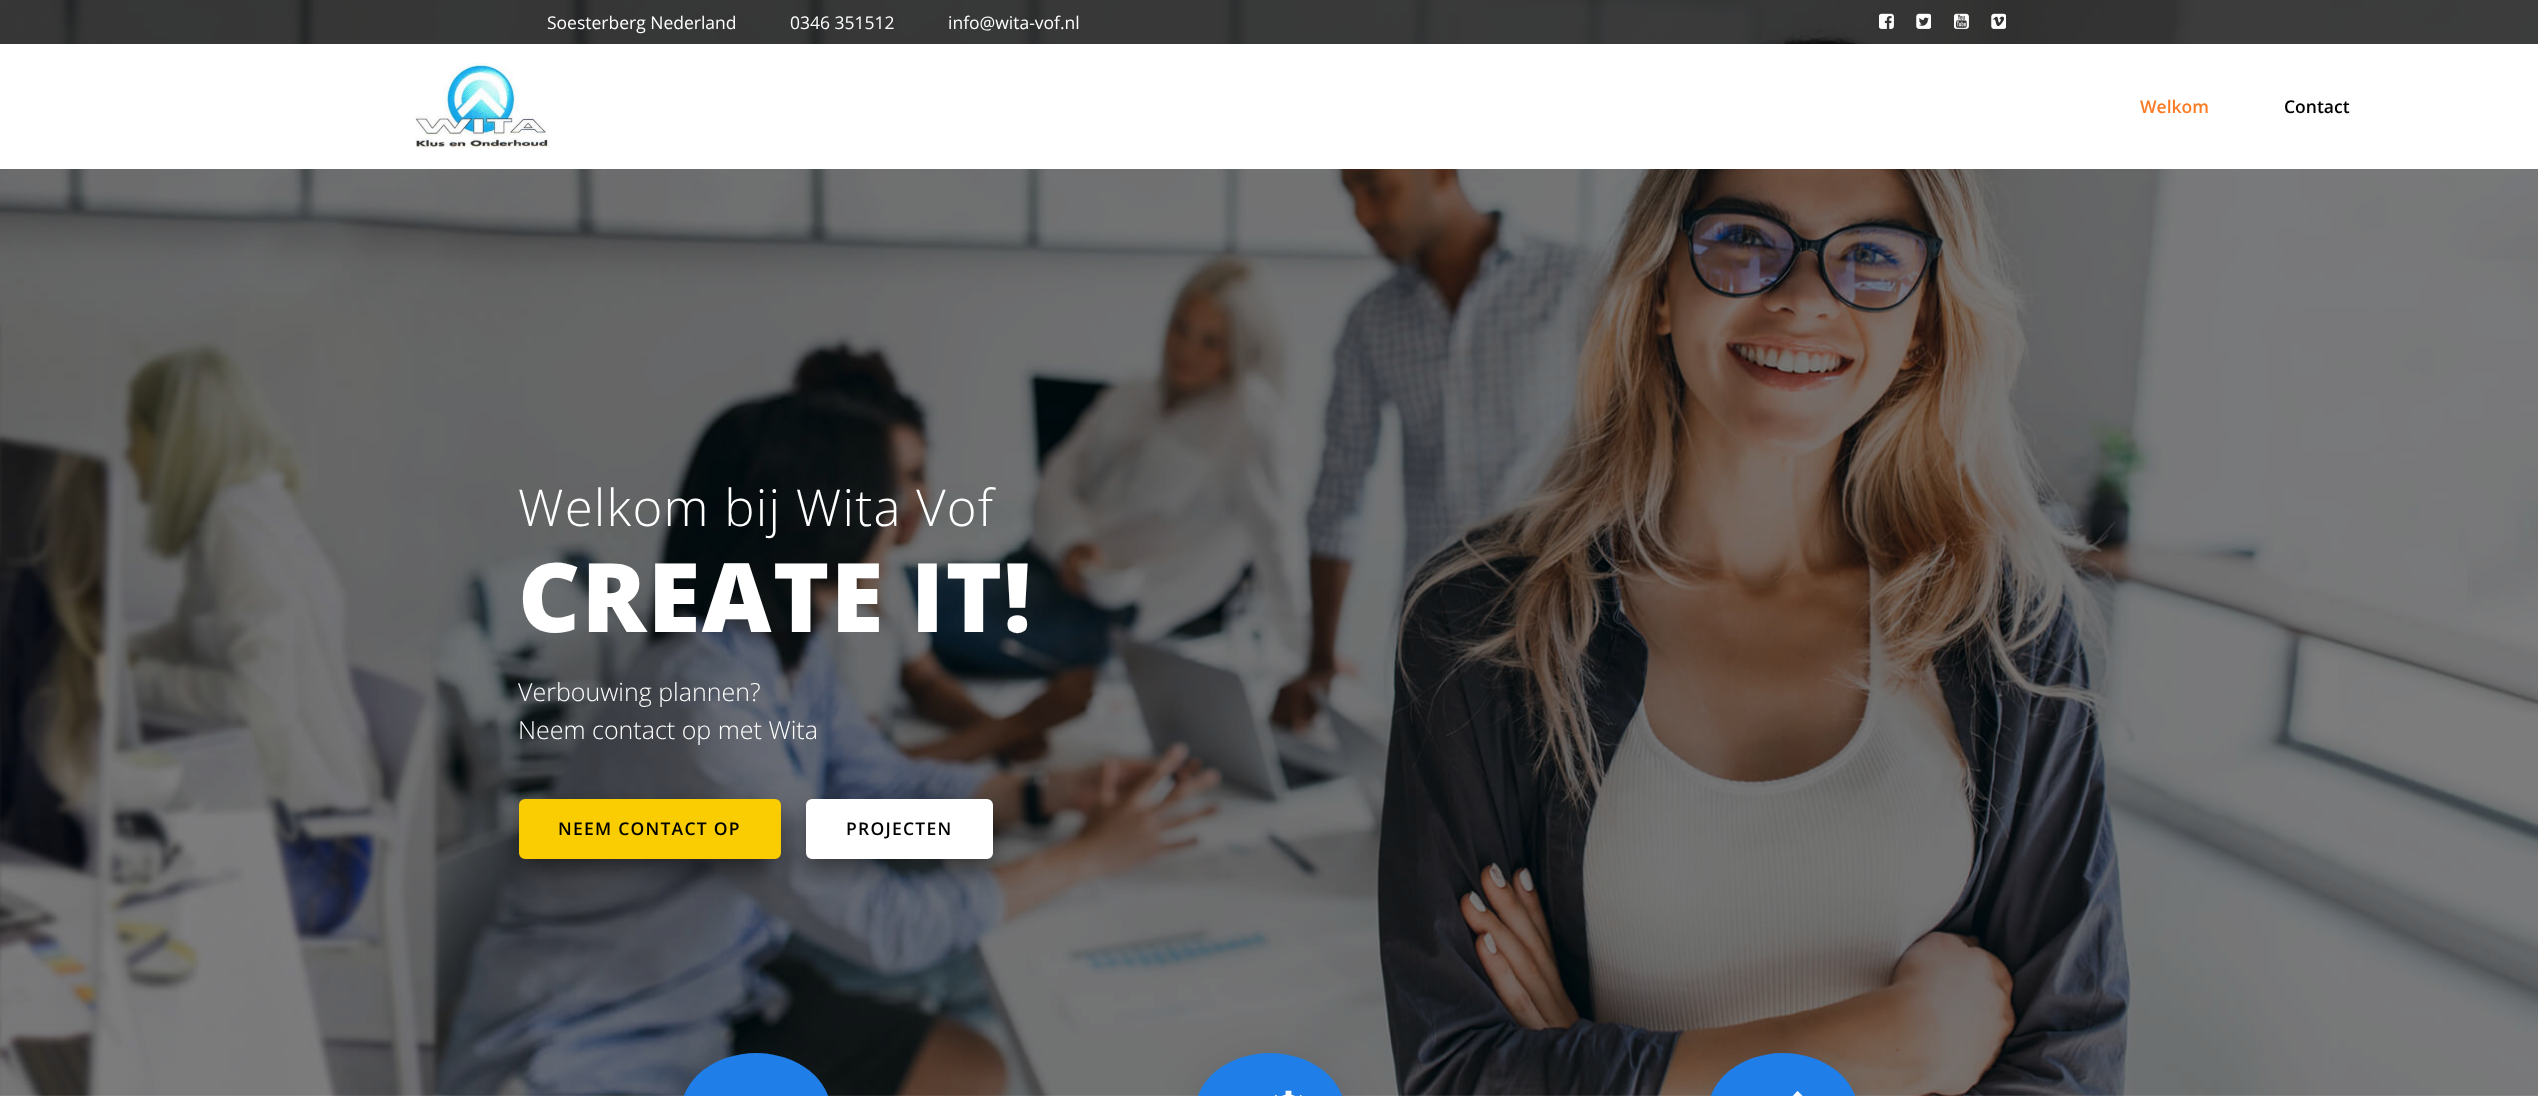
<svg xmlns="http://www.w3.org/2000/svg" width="2538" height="1096">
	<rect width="100%" height="100%" fill="#FFFFFF" />
	<image x="0" y="0" width="2538" height="1096" href="assets/img6.png" />
	<rect x="0" y="0" width="2538" height="44" fill="#000000" fill-opacity="0.5" />
	<g font-family="Open Sans" font-size="17.5" fill="#FFFFFF">
		<text x="547" y="29">Soesterberg Nederland</text>
		<text x="790" y="29">0346 351512</text>
		<text x="948" y="29">info@wita-vof.nl</text>
	</g>
	<image x="1879" y="13" width="15" height="16" href="assets/img1.png" />
	<image x="1916" y="13" width="15" height="16" href="assets/img2.png" />
	<image x="1954" y="13" width="15" height="16" href="assets/img3.png" />
	<image x="1991" y="13" width="15" height="16" href="assets/img4.png" />
	<rect x="0" y="44" width="2538" height="125" fill="#FFFFFF" />
	<image x="415" y="63" width="135" height="85" href="assets/img5.png" />
	<text x="2140" y="113" font-family="Open Sans" font-size="17.5" font-weight="600" fill="#FC7A23">Welkom</text>
	<text x="2284" y="113" font-family="Open Sans" font-size="17.5" font-weight="600" fill="#000000">Contact</text>
	<text x="518" y="526" font-family="Open Sans" font-size="50.9" font-weight="300" letter-spacing="1.25" fill="#FFFFFF">Welkom bij Wita Vof</text>
	<text x="518" y="632" font-family="Open Sans" font-size="96" font-weight="800" letter-spacing="1.25" fill="#FFFFFF">CREATE IT!</text>
	<g font-family="Open Sans" font-size="25" font-weight="300" fill="#FFFFFF">
		<text x="518" y="701">Verbouwing plannen?</text>
		<text x="518" y="739">Neem contact op met Wita</text>
	</g>
	<rect x="519" y="811" width="262" height="60" rx="6" fill="#000000" fill-opacity="0.5" filter="blur(12.5px)" />
	<rect x="520.5" y="800.5" width="259" height="57" rx="4.5" fill="#F9CD02" stroke="#F9CD02" stroke-width="3" />
	<text x="558" y="835" font-family="Open Sans" font-size="17.5" font-weight="600" letter-spacing="1.25" fill="#000000">NEEM CONTACT OP</text>
	<rect x="806" y="811" width="187" height="60" rx="6" fill="#000000" fill-opacity="0.5" filter="blur(12.5px)" />
	<rect x="807.5" y="800.5" width="184" height="57" rx="4.5" fill="#FFFFFF" stroke="#FFFFFF" stroke-width="3" />
	<text x="846" y="835" font-family="Open Sans" font-size="17.5" font-weight="600" letter-spacing="1.25" fill="#000000">PROJECTEN</text>
	<rect x="679" y="1063" width="155" height="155" rx="77.5" fill="#313439" fill-opacity="0.3" filter="blur(19px)" />
	<rect x="681" y="1053" width="150" height="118" rx="75" fill="#1F7EE7" />
	<rect x="1193" y="1063" width="155" height="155" rx="77.5" fill="#313439" fill-opacity="0.3" filter="blur(19px)" />
	<rect x="1195" y="1053" width="150" height="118" rx="75" fill="#1F7EE7" />
	<image x="1274" y="1090" width="28" height="6" href="assets/img7.png" />
	<rect x="1705" y="1063" width="155" height="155" rx="77.5" fill="#313439" fill-opacity="0.3" filter="blur(19px)" />
	<rect x="1708" y="1053" width="150" height="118" rx="75" fill="#1F7EE7" />
	<image x="1792" y="1091" width="11" height="5" href="assets/img8.png" />
</svg>
